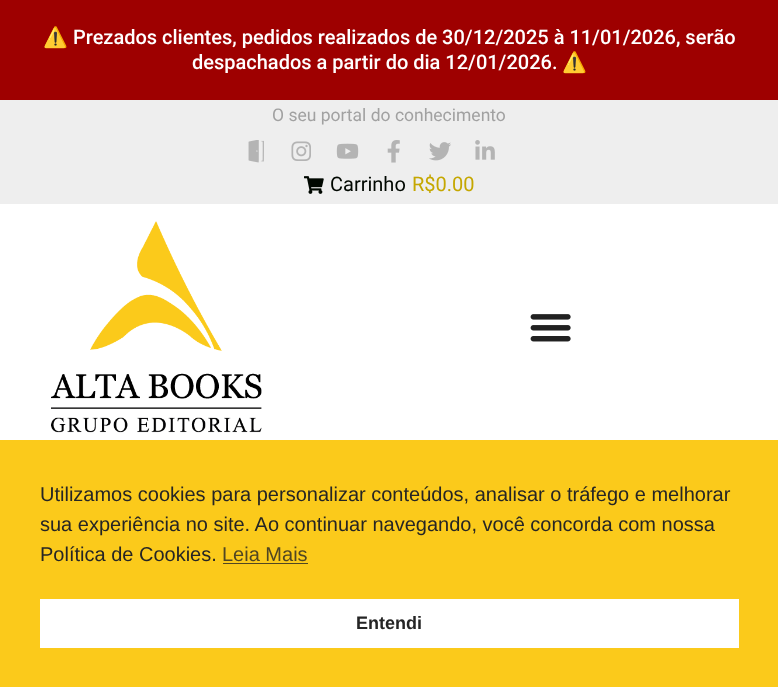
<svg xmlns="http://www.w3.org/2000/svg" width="778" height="687">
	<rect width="100%" height="100%" fill="#9E0000" />
	<text x="43" y="44" font-family="Noto Color Emoji" font-size="20" fill="#FFFFFF">⚠️</text>
	<g font-family="Roboto" font-size="20" font-weight="500" fill="#FFFFFF">
		<text x="73" y="44">Prezados clientes, pedidos realizados de 30/12/2025 à 11/01/2026, serão</text>
		<text x="192" y="69">despachados a partir do dia 12/01/2026.</text>
	</g>
	<text x="562" y="69" font-family="Noto Color Emoji" font-size="20" fill="#FFFFFF">⚠️</text>
	<rect x="0" y="100" width="778" height="104" fill="#EEEEEE" />
	<text x="272" y="121" font-family="Roboto" font-size="17.5" fill="#A1A1A1">O seu portal do conhecimento</text>
	<image x="248" y="140" width="16" height="23" href="assets/img1.png" />
	<image x="291" y="141" width="20" height="20" href="assets/img2.png" />
	<image x="336" y="143" width="23" height="16" href="assets/img3.png" />
	<image x="387" y="140" width="13" height="23" href="assets/img4.png" />
	<image x="429" y="142" width="22" height="19" href="assets/img5.png" />
	<image x="475" y="140" width="20" height="20" href="assets/img6.png" />
	<image x="304" y="176" width="20" height="18" href="assets/img7.png" />
	<text x="330" y="191" font-family="Roboto" font-size="20" fill="#000700">Carrinho</text>
	<text x="412" y="191" font-family="Roboto" font-size="20" fill="#C5A700">R$0.00</text>
	<rect x="0" y="204" width="778" height="236" fill="#FFFFFF" />
	<image x="51" y="221" width="211" height="212" href="assets/img8.png" />
	<image x="530" y="314" width="41" height="28" href="assets/img9.png" />
	<rect x="0" y="440" width="778" height="247" fill="#FBCA1B" />
	<g font-family="Liberation Sans" font-size="20" fill="#252525">
		<text x="40" y="501">Utilizamos cookies para personalizar conteúdos, analisar o tráfego e melhorar</text>
		<text x="40" y="531">sua experiência no site. Ao continuar navegando, você concorda com nossa</text>
		<text x="40" y="561">Política de Cookies.</text>
	</g>
	<text x="222" y="561" font-family="Liberation Sans" font-size="20" fill="#504623">Leia Mais</text>
	<rect x="223" y="563" width="85" height="1" fill="#504623" />
	<rect x="40" y="599" width="699" height="49" fill="#FFFFFF" />
	<text x="356" y="629" font-family="Liberation Sans" font-size="18" font-weight="700" fill="#252525">Entendi</text>
</svg>
